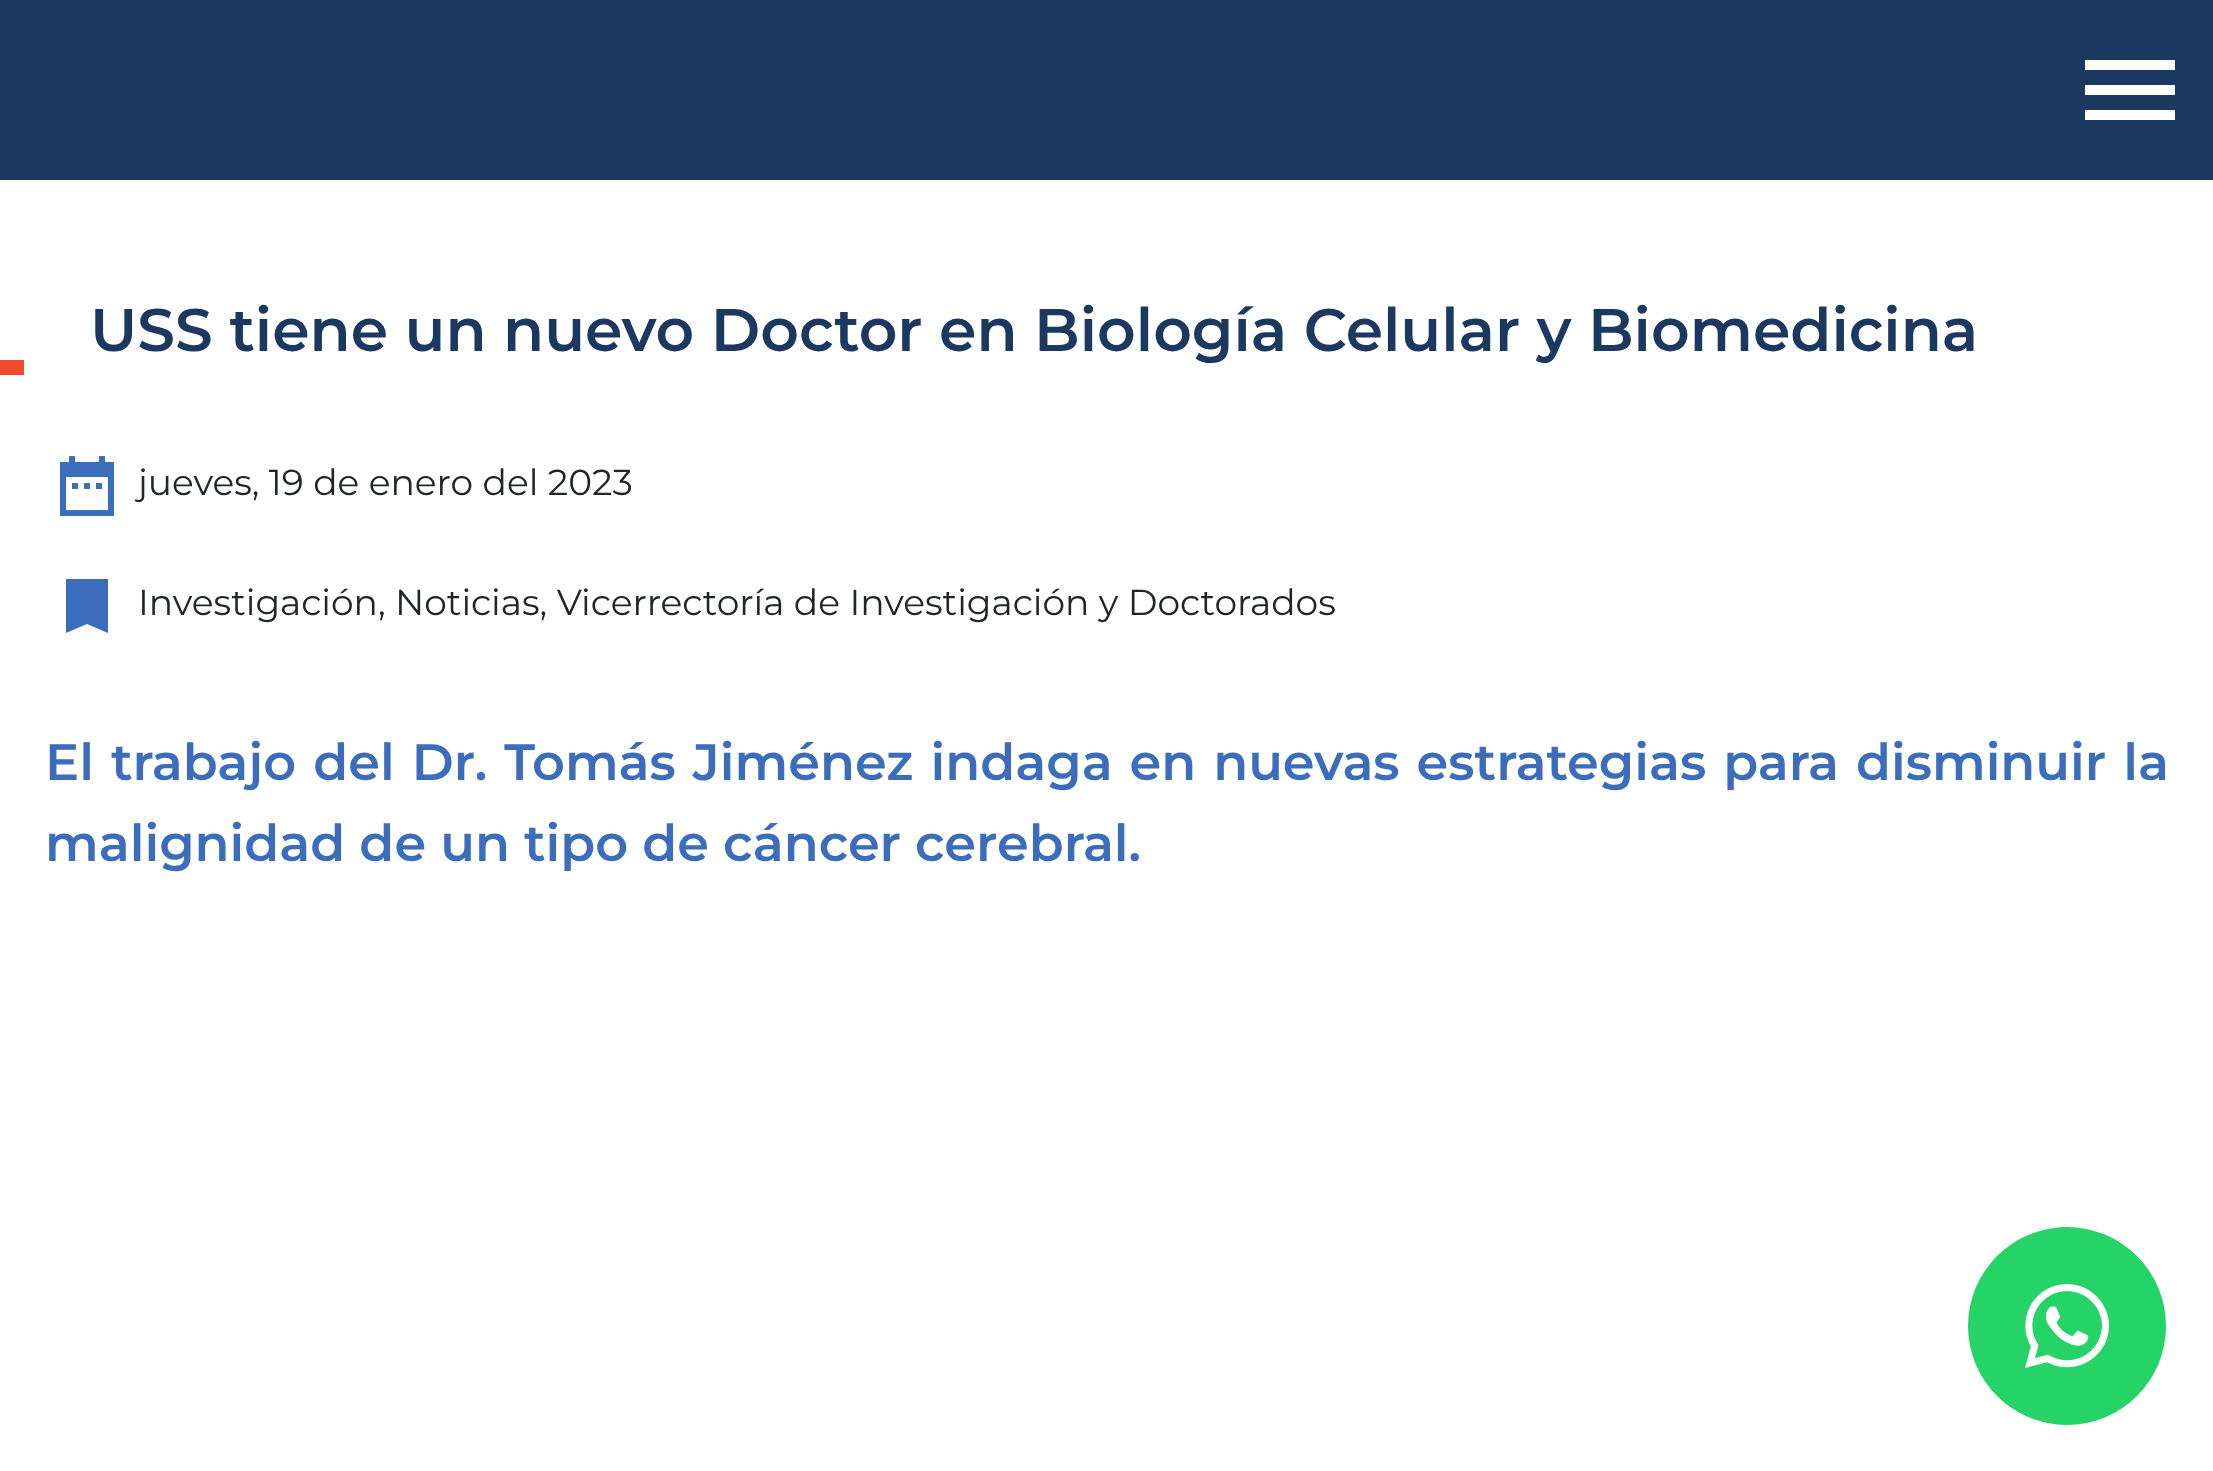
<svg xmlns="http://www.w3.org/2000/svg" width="2213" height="1471">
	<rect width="100%" height="100%" fill="#FFFFFF" />
	<rect x="0" y="0" width="2213" height="180" fill="#1B3860" />
	<path d="M2085 120H2175V110H2085ZM2085 95H2175V85H2085ZM2085 60V70H2175V60Z" fill="#FFFFFF" />
	<text x="90" y="351" font-family="Montserrat" font-size="60" font-weight="600" fill="#1B3860">USS tiene un nuevo Doctor en Biología Celular y Biomedicina</text>
	<rect x="0" y="360" width="24" height="15" fill="#EF4A2F" />
	<image x="60" y="456" width="54" height="60" href="assets/img1.png" />
	<text x="138" y="495" font-family="Montserrat" font-size="36" fill="#212529">jueves, 19 de enero del 2023</text>
	<path d="M108 579H66V633L87 624L108 633Z" fill="#3C6DBC" />
	<text x="138" y="615" font-family="Montserrat" font-size="36" fill="#212529">Investigación, Noticias, Vicerrectoría de Investigación y Doctorados</text>
	<g font-family="Montserrat" font-size="51" font-weight="600" fill="#3C6DBC">
		<text x="45" y="780" word-spacing="2.9">El trabajo del Dr. Tomás Jiménez indaga en nuevas estrategias para disminuir la</text>
		<text x="45" y="861">malignidad de un tipo de cáncer cerebral.</text>
	</g>
	<circle cx="2067" cy="1326" r="99" fill="#25D366" />
	<image x="2025" y="1284" width="84" height="84" href="assets/img2.png" />
</svg>
